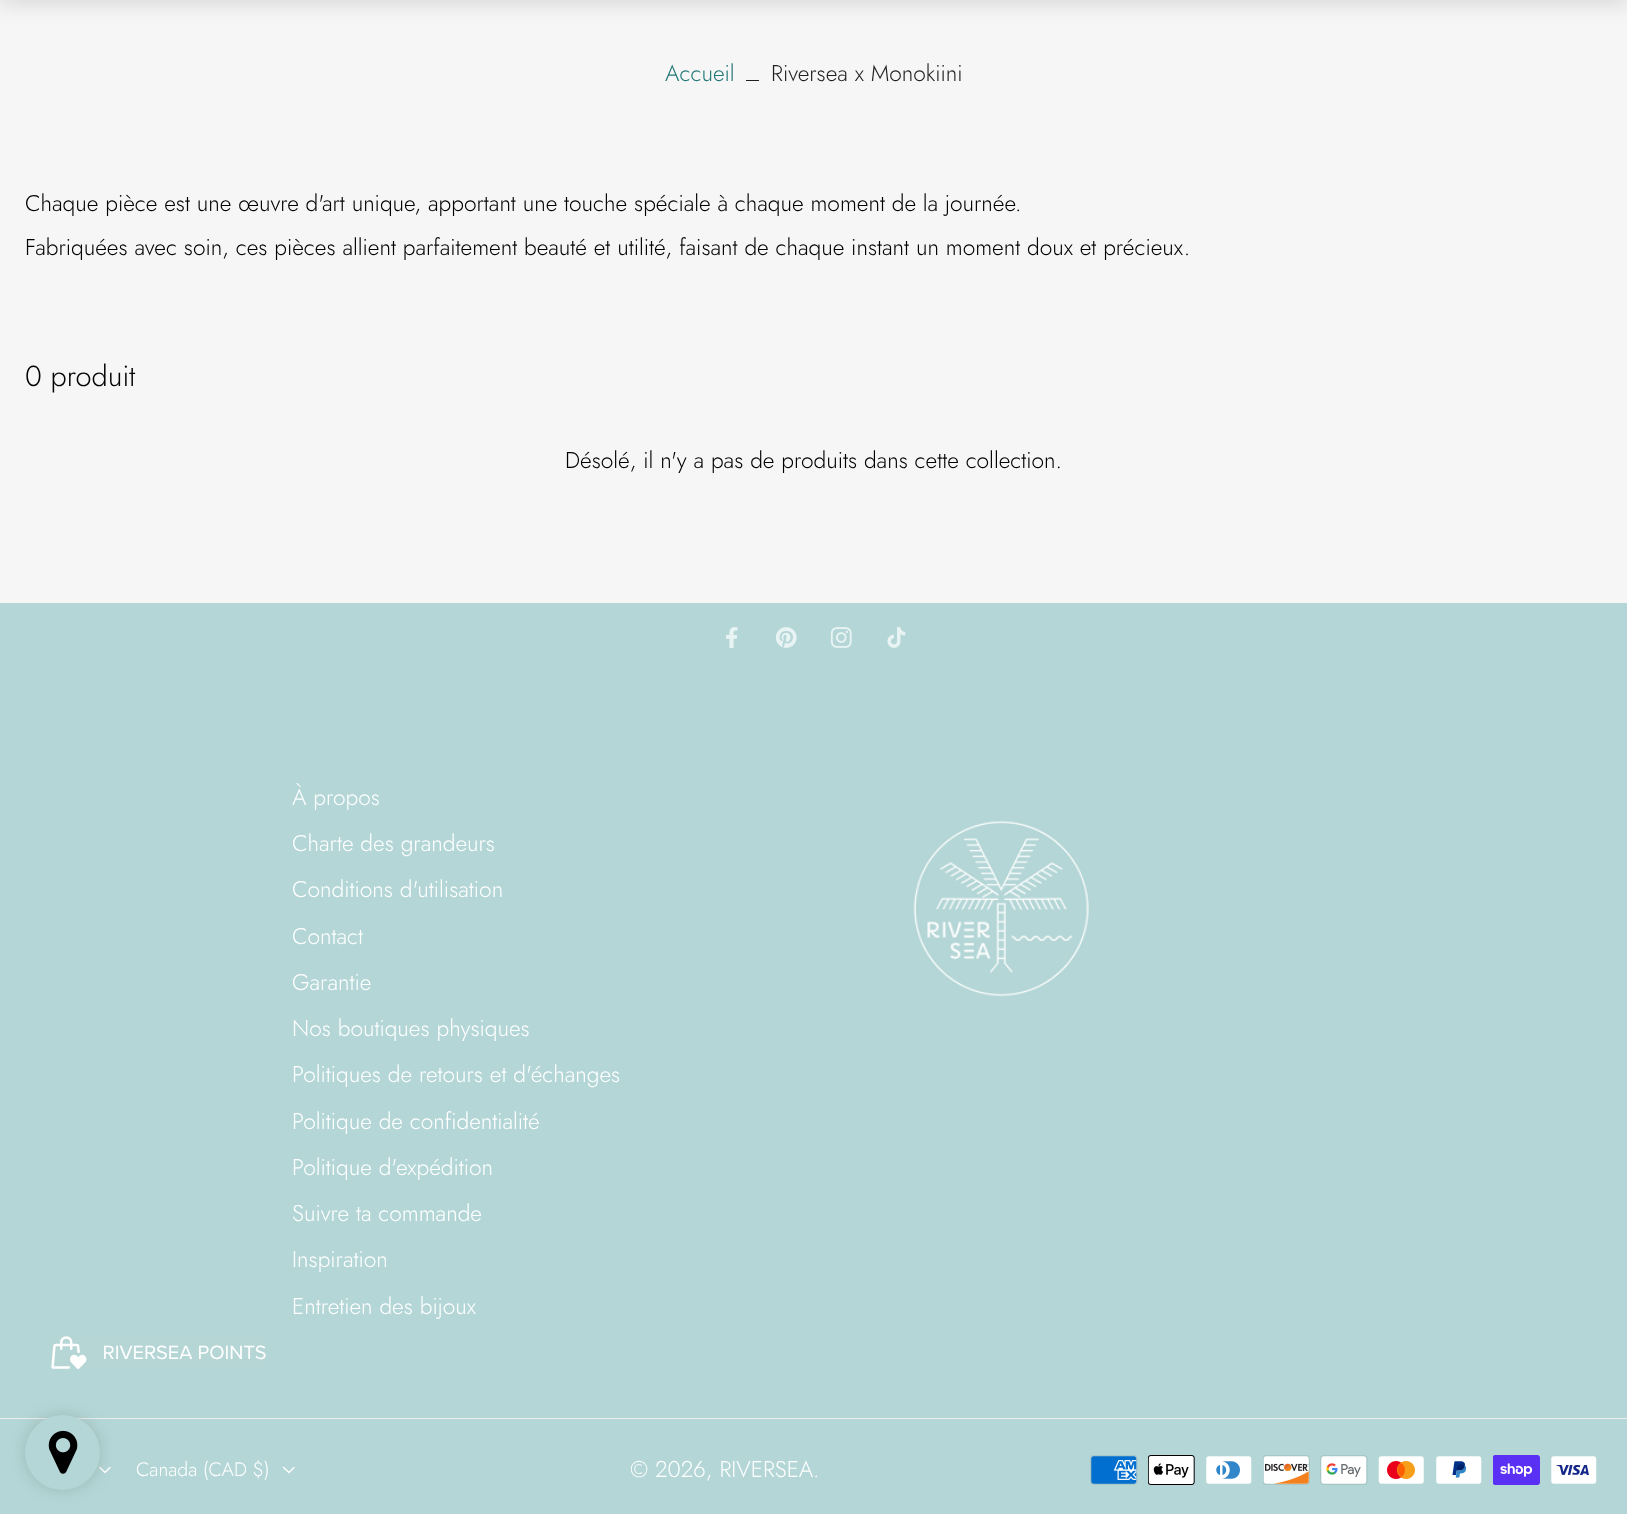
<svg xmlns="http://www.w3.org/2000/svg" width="1627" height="1514">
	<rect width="100%" height="100%" fill="#F6F6F6" />
	<rect x="0" y="-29" width="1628" height="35" fill="#000000" fill-opacity="0.1" filter="blur(9.5px)" />
	<text x="665" y="81" font-family="Jost" font-size="22.75" font-weight="300" fill="#237878">Accueil</text>
	<rect x="746" y="80" width="13" height="1" fill="#1F1F1F" />
	<text x="771" y="81" font-family="Jost" font-size="22.75" font-weight="300" fill="#1F1F1F">Riversea x Monokiini</text>
	<g font-family="Jost" font-size="22.75" font-weight="300" fill="#000000">
		<text x="25" y="211">Chaque pièce est une œuvre d'art unique, apportant une touche spéciale à chaque moment de la journée.</text>
		<text x="25" y="255">Fabriquées avec soin, ces pièces allient parfaitement beauté et utilité, faisant de chaque instant un moment doux et précieux.</text>
	</g>
	<text x="25" y="386" font-family="Jost" font-size="29" font-weight="300" fill="#000000">0 produit</text>
	<text x="565" y="468" font-family="Jost" font-size="22.75" font-weight="300" fill="#000000">Désolé, il n'y a pas de produits dans cette collection.</text>
	<rect x="0" y="603" width="1627" height="911" fill="#B4D6D6" />
	<image x="726" y="627" width="12" height="21" href="assets/img1.png" />
	<image x="775" y="627" width="22" height="21" href="assets/img2.png" />
	<image x="830" y="627" width="22" height="21" href="assets/img3.png" />
	<image x="887" y="627" width="19" height="21" href="assets/img4.png" />
	<rect x="0" y="1418" width="1627" height="1" fill="#EEEEEE" />
	<g font-family="Jost" font-size="22.75" font-weight="300" fill="#FFFFFF">
		<text x="292" y="805">À propos</text>
		<text x="292" y="851">Charte des grandeurs</text>
		<text x="292" y="897">Conditions d'utilisation</text>
		<text x="292" y="944">Contact</text>
		<text x="292" y="990">Garantie</text>
		<text x="292" y="1036">Nos boutiques physiques</text>
		<text x="292" y="1082">Politiques de retours et d'échanges</text>
		<text x="292" y="1129">Politique de confidentialité</text>
		<text x="292" y="1175">Politique d'expédition</text>
		<text x="292" y="1221">Suivre ta commande</text>
		<text x="292" y="1267">Inspiration</text>
		<text x="292" y="1314">Entretien des bijoux</text>
	</g>
	<image x="913" y="821" width="176" height="176" href="assets/img5.png" />
	<path d="M100 1467.5L105 1472.5L110 1467.5" fill="none" stroke="#FFFFFF" stroke-width="1.4" stroke-linecap="round" stroke-linejoin="round" />
	<text x="136" y="1476" font-family="Jost" font-size="19.5" font-weight="300" fill="#FFFFFF">Canada (CAD $)</text>
	<path d="M283.5 1467.5L289 1472.5L294 1467.5" fill="none" stroke="#FFFFFF" stroke-width="1.4" stroke-linecap="round" stroke-linejoin="round" />
	<g font-family="Jost" font-size="22.75" font-weight="300" fill="#FFFFFF">
		<text x="630" y="1477">© 2026, RIVERSEA</text>
		<text x="813" y="1477">.</text>
	</g>
	<image x="1090" y="1455" width="48" height="30" href="assets/img6.png" />
	<image x="1148" y="1455" width="47" height="30" href="assets/img7.png" />
	<image x="1206" y="1456" width="46" height="28" href="assets/img8.png" />
	<image x="1263" y="1455" width="47" height="30" href="assets/img9.png" />
	<image x="1320" y="1455" width="48" height="30" href="assets/img10.png" />
	<image x="1378" y="1456" width="46" height="28" href="assets/img11.png" />
	<image x="1436" y="1456" width="46" height="28" href="assets/img12.png" />
	<image x="1493" y="1455" width="47" height="30" href="assets/img13.png" />
	<image x="1551" y="1456" width="46" height="28" href="assets/img14.png" />
	<image x="51" y="1336" width="215" height="33" href="assets/img15.png" />
	<rect x="36" y="1426" width="53" height="53" rx="26.5" fill="#5A5A5A" filter="blur(11px)" />
	<circle cx="62.5" cy="1452.5" r="37.5" fill="#B4D6D6" />
	<image x="48" y="1430" width="30" height="44" href="assets/img16.png" />
</svg>
